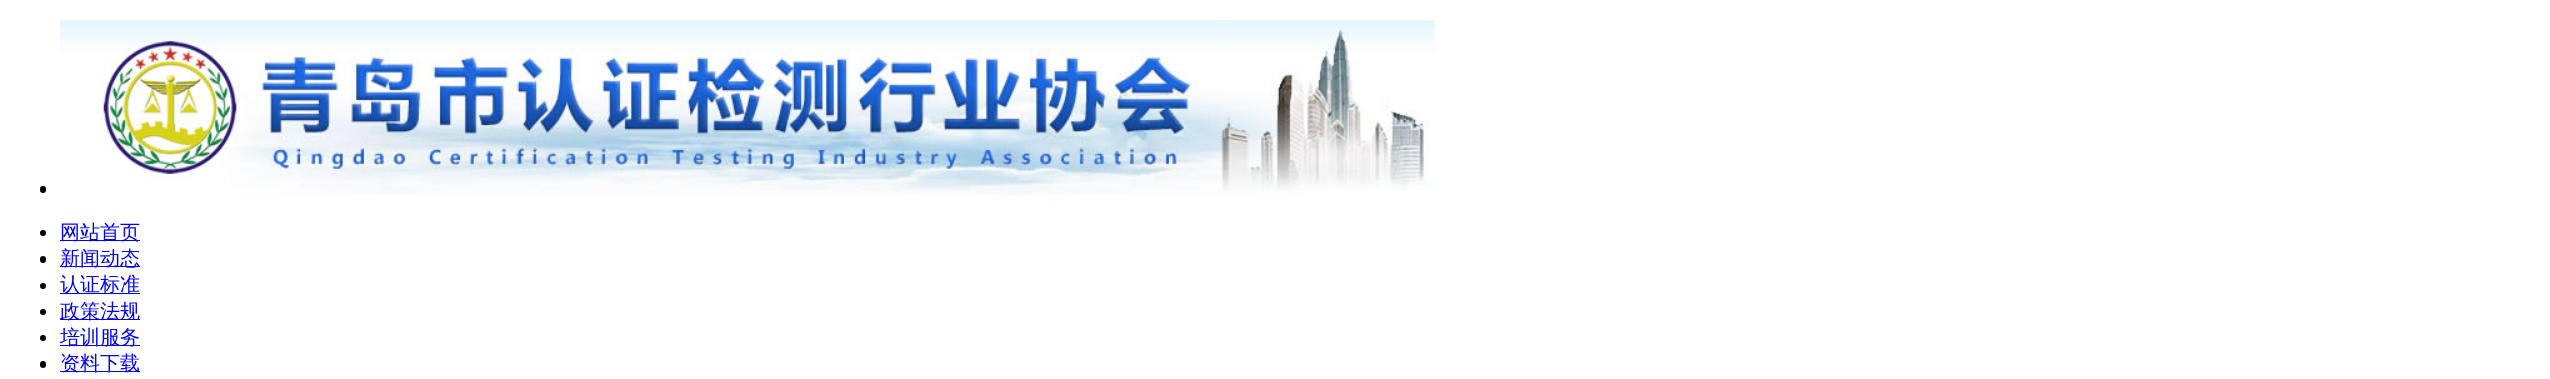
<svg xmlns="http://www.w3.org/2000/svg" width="2550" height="379">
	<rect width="100%" height="100%" fill="#FFFFFF" />
	<rect x="40" y="186" width="6" height="7" rx="3" fill="#000000" />
	<image x="60" y="20" width="1375" height="175" href="assets/img1.png" />
	<circle cx="43" cy="233" r="3" fill="#000000" />
	<rect x="60" y="240" width="80" height="1" fill="#0000EE" />
	<text x="60" y="239" font-family="WenQuanYi Zen Hei" font-size="20" font-weight="500" fill="#0000EE">网站首页</text>
	<rect x="40" y="256" width="6" height="7" rx="3" fill="#000000" />
	<rect x="60" y="266" width="80" height="1" fill="#0000EE" />
	<text x="60" y="265" font-family="WenQuanYi Zen Hei" font-size="20" font-weight="500" fill="#0000EE">新闻动态</text>
	<circle cx="43" cy="286" r="3" fill="#000000" />
	<rect x="60" y="293" width="80" height="1" fill="#0000EE" />
	<text x="60" y="291" font-family="WenQuanYi Zen Hei" font-size="20" font-weight="500" fill="#0000EE">认证标准</text>
	<circle cx="43" cy="312" r="3" fill="#000000" />
	<rect x="60" y="319" width="80" height="1" fill="#0000EE" />
	<text x="60" y="318" font-family="WenQuanYi Zen Hei" font-size="20" font-weight="500" fill="#0000EE">政策法规</text>
	<circle cx="43" cy="338" r="3" fill="#000000" />
	<rect x="60" y="345" width="80" height="1" fill="#0000EE" />
	<text x="60" y="344" font-family="WenQuanYi Zen Hei" font-size="20" font-weight="500" fill="#0000EE">培训服务</text>
	<rect x="40" y="361" width="6" height="7" rx="3" fill="#000000" />
	<rect x="60" y="371" width="80" height="1" fill="#0000EE" />
	<text x="60" y="370" font-family="WenQuanYi Zen Hei" font-size="20" font-weight="500" fill="#0000EE">资料下载</text>
</svg>
